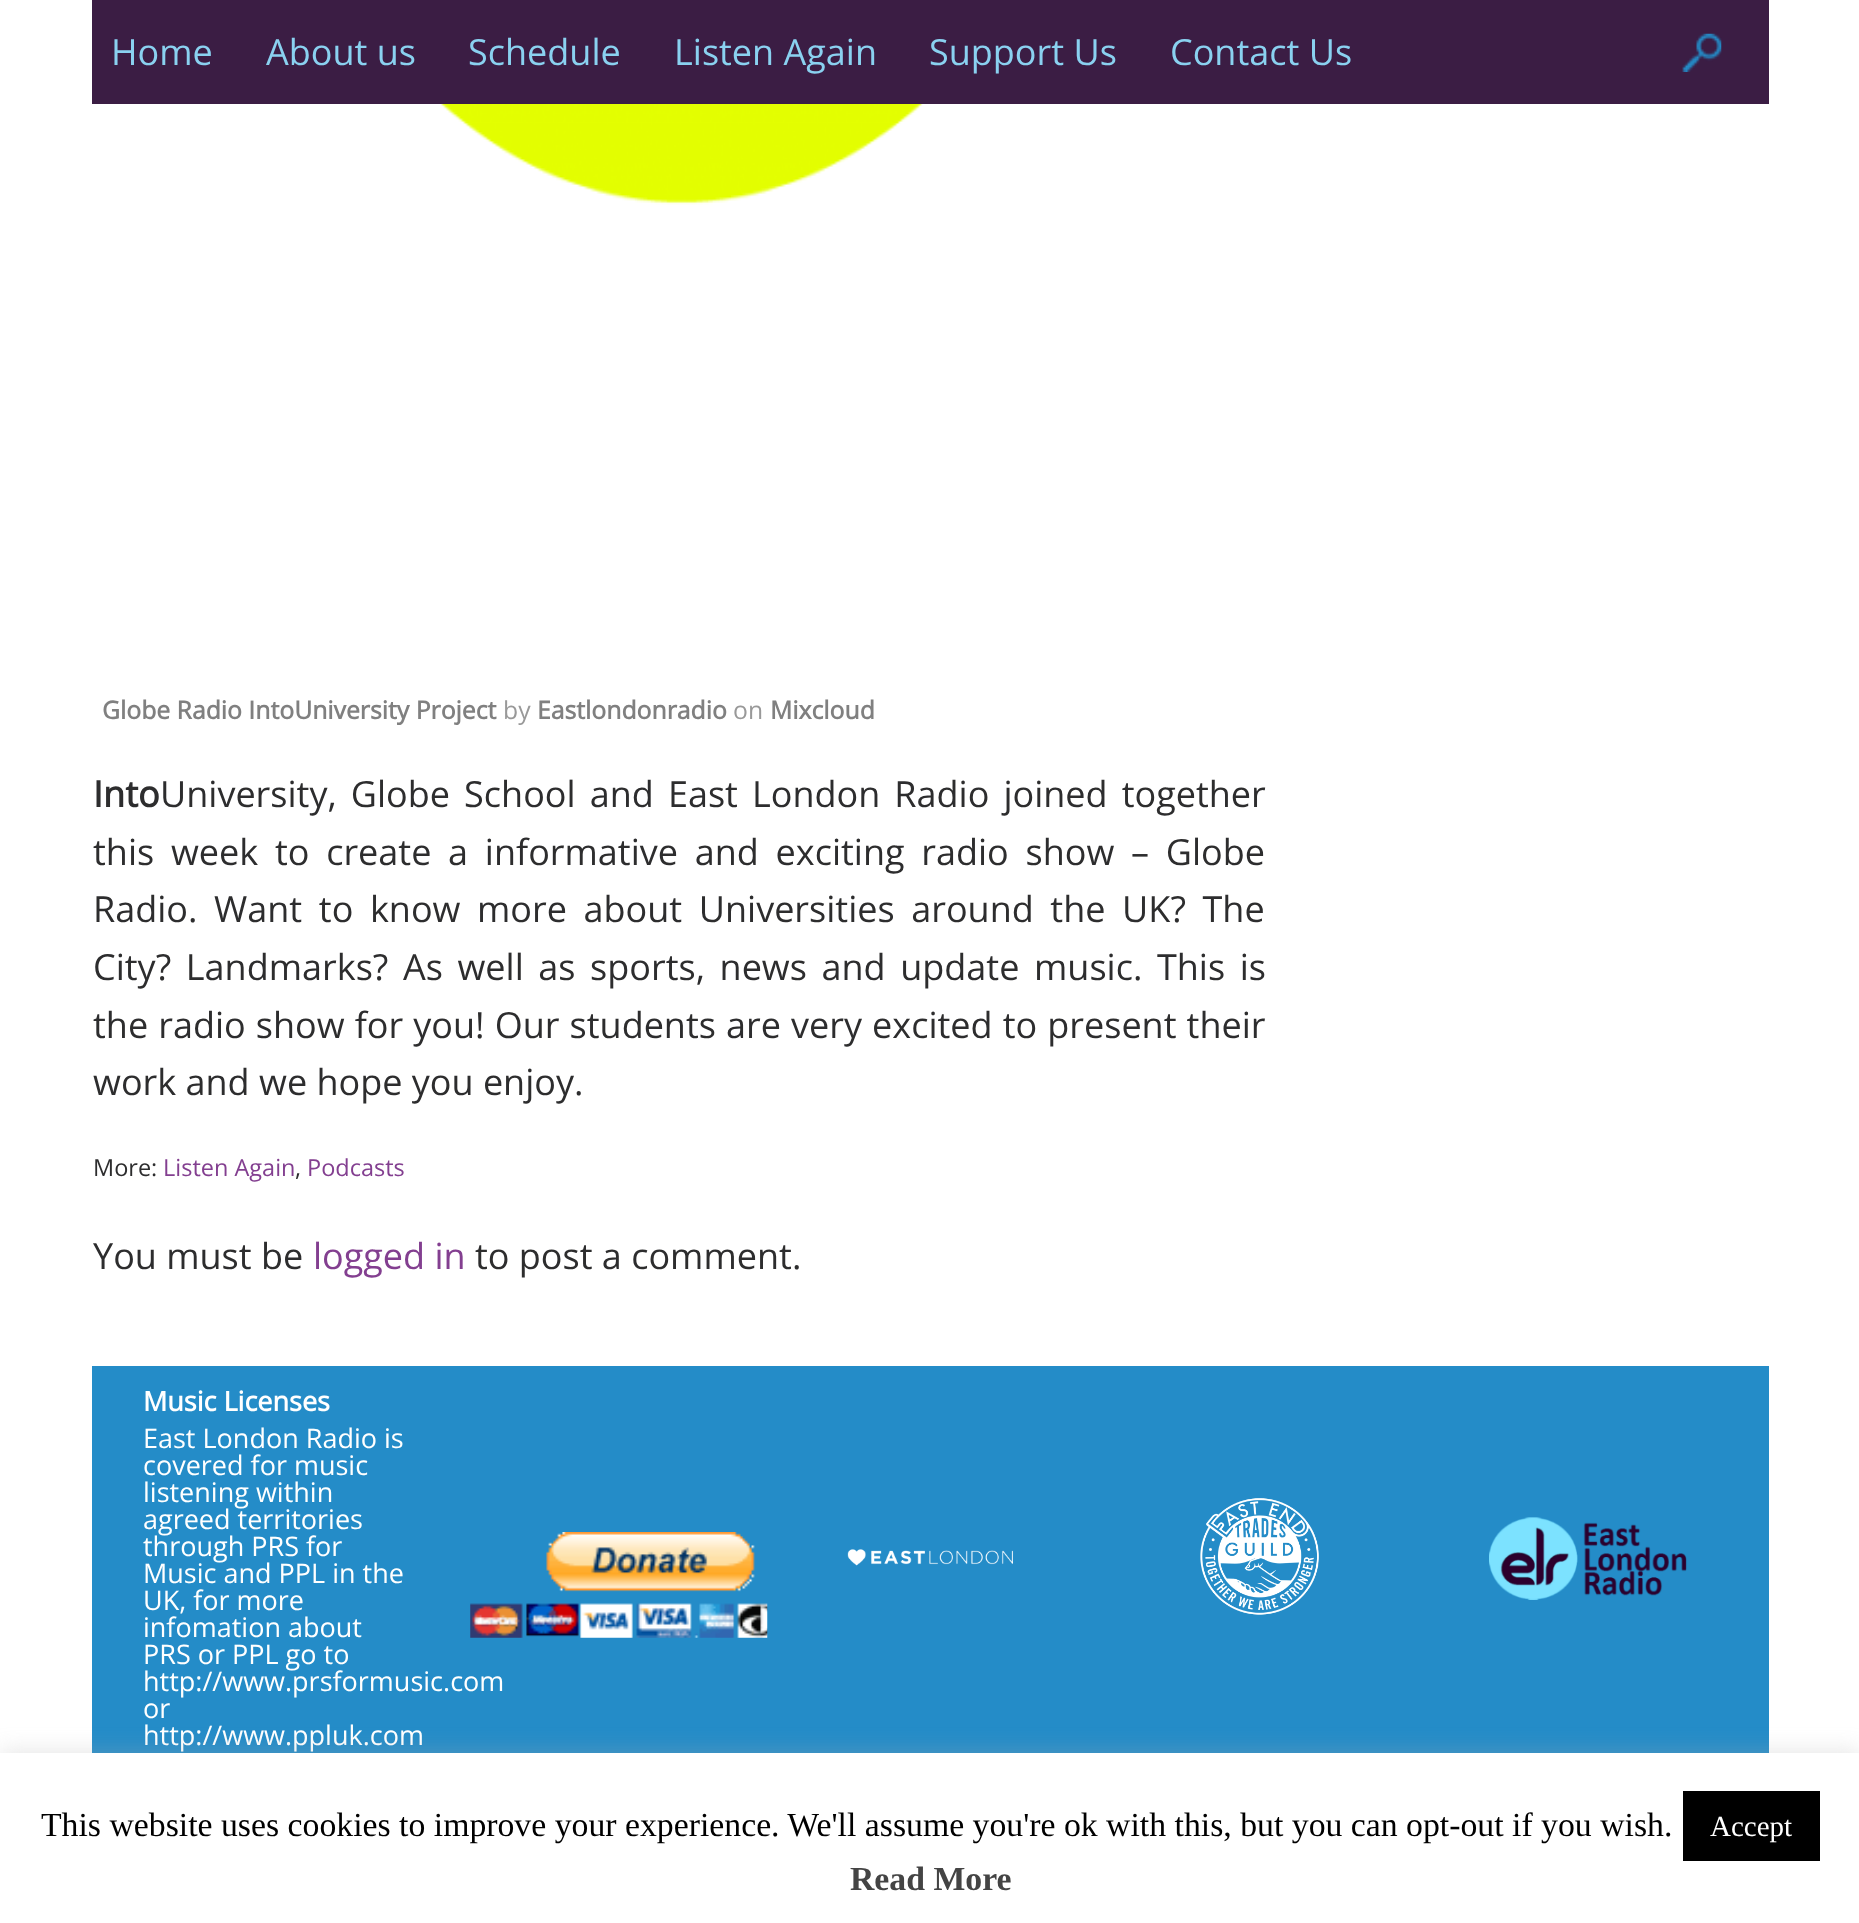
<svg xmlns="http://www.w3.org/2000/svg" width="1859" height="1923">
	<rect width="100%" height="100%" fill="#FFFFFF" />
	<rect x="92" y="0" width="1677" height="104" fill="#3B1D44" />
	<g font-family="Open Sans" font-size="36" fill="#8AD1F0">
		<text x="111" y="65">Home</text>
		<text x="266" y="65">About us</text>
		<text x="468" y="65">Schedule</text>
		<text x="674" y="65">Listen Again</text>
		<text x="929" y="65">Support Us</text>
		<text x="1170" y="65">Contact Us</text>
	</g>
	<image x="1682" y="33" width="40" height="39" href="assets/img1.png" />
	<image x="440" y="104" width="483" height="101" href="assets/img2.png" />
	<text x="102" y="719" font-family="Open Sans" font-size="24.75" font-weight="700" fill="#808080">Globe Radio IntoUniversity Project</text>
	<text x="503" y="719" font-family="Open Sans" font-size="24.75" fill="#999999">by</text>
	<text x="537" y="719" font-family="Open Sans" font-size="24.75" font-weight="700" fill="#808080">Eastlondonradio</text>
	<text x="733" y="719" font-family="Open Sans" font-size="24.75" fill="#999999">on</text>
	<text x="770" y="719" font-family="Open Sans" font-size="24.75" font-weight="700" fill="#808080">Mixcloud</text>
	<text x="93" y="807" font-family="Open Sans" font-size="36" font-weight="700" fill="#2D2D2E">Into</text>
	<g font-family="Open Sans" font-size="36" fill="#2D2D2E">
		<text x="160" y="807" word-spacing="4.75">University, Globe School and East London Radio joined together</text>
		<text x="93" y="865" word-spacing="7.4">this week to create a informative and exciting radio show – Globe</text>
		<text x="93" y="922" word-spacing="7.25">Radio. Want to know more about Universities around the UK? The</text>
		<text x="93" y="980" word-spacing="5.25">City? Landmarks? As well as sports, news and update music. This is</text>
		<text x="93" y="1038" word-spacing="0.75">the radio show for you! Our students are very excited to present their</text>
		<text x="93" y="1095">work and we hope you enjoy.</text>
	</g>
	<text x="93" y="1176" font-family="Open Sans" font-size="23.5" fill="#2D2D2E">More:</text>
	<text x="163" y="1176" font-family="Open Sans" font-size="23.5" fill="#833F90">Listen Again</text>
	<text x="295" y="1176" font-family="Open Sans" font-size="23.5" fill="#2D2D2E">,</text>
	<text x="307" y="1176" font-family="Open Sans" font-size="23.5" fill="#833F90">Podcasts</text>
	<text x="93" y="1269" font-family="Open Sans" font-size="36" fill="#2D2D2E">You must be</text>
	<text x="313" y="1269" font-family="Open Sans" font-size="36" fill="#833F90">logged in</text>
	<text x="475" y="1269" font-family="Open Sans" font-size="36" fill="#2D2D2E">to post a comment.</text>
	<rect x="92" y="1366" width="1677" height="387" fill="#248CC8" />
	<text x="143" y="1411" font-family="Open Sans" font-size="27" font-weight="700" fill="#FFFFFF">Music Licenses</text>
	<g font-family="Open Sans" font-size="27" fill="#FFFFFF">
		<text x="143" y="1448">East London Radio is</text>
		<text x="143" y="1475">covered for music</text>
		<text x="143" y="1502">listening within</text>
		<text x="143" y="1529">agreed territories</text>
		<text x="143" y="1556">through PRS for</text>
		<text x="143" y="1583">Music and PPL in the</text>
		<text x="143" y="1610">UK, for more</text>
		<text x="143" y="1637">infomation about</text>
		<text x="143" y="1664">PRS or PPL go to</text>
		<text x="143" y="1691">http://www.prsformusic.com</text>
		<text x="143" y="1718">or</text>
		<text x="143" y="1745">http://www.ppluk.com</text>
	</g>
	<image x="470" y="1532" width="298" height="106" href="assets/img3.png" />
	<image x="847" y="1549" width="166" height="17" href="assets/img4.png" />
	<image x="1200" y="1498" width="119" height="117" href="assets/img5.png" />
	<image x="1489" y="1517" width="198" height="83" href="assets/img6.png" />
	<rect x="0" y="1751" width="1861" height="171" fill="#ACABAB" fill-opacity="0.3" filter="blur(11px)" />
	<rect x="0" y="1753" width="1859" height="170" fill="#FFFFFF" />
	<text x="41" y="1836" font-family="Liberation Serif" font-size="33.75" fill="#000000">This website uses cookies to improve your experience. We'll assume you're ok with this, but you can opt-out if you wish.</text>
	<rect x="1683" y="1791" width="137" height="70" fill="#000000" />
	<text x="1710" y="1836" font-family="Liberation Serif" font-size="29" fill="#FFFFFF">Accept</text>
	<text x="850" y="1890" font-family="Liberation Serif" font-size="33.75" font-weight="700" fill="#444444">Read More</text>
</svg>
